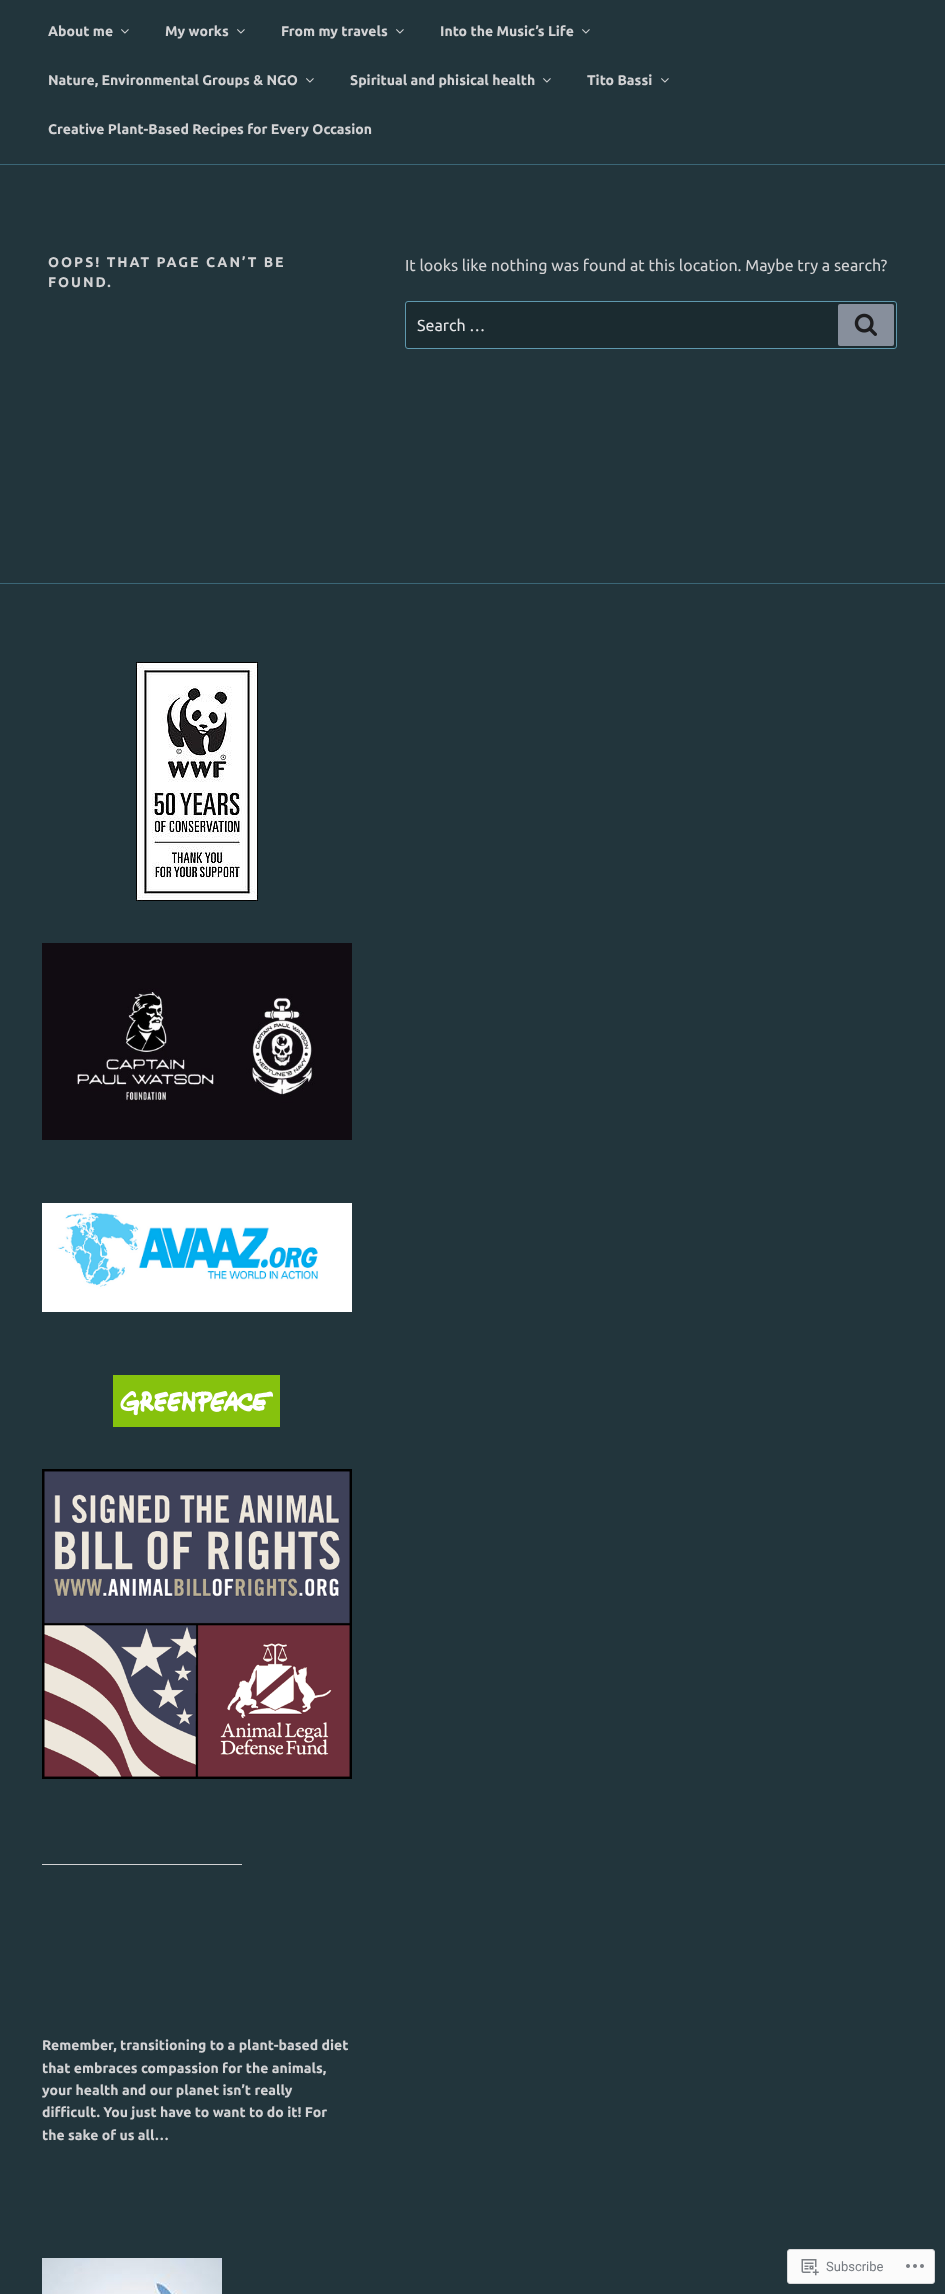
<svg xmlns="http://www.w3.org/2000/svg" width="945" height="2294">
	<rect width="100%" height="100%" fill="#22353C" />
	<rect x="0" y="164" width="945" height="1" fill="#3B6676" />
	<text x="48" y="36" font-family="Ubuntu" font-size="14" font-weight="700" fill="#D2D2D4">About me</text>
	<image x="121" y="29" width="8" height="5" href="assets/img1.png" />
	<text x="165" y="36" font-family="Ubuntu" font-size="14" font-weight="700" fill="#D2D2D4">My works</text>
	<image x="237" y="29" width="8" height="5" href="assets/img1.png" />
	<text x="281" y="36" font-family="Ubuntu" font-size="14" font-weight="700" fill="#D2D2D4">From my travels</text>
	<image x="396" y="29" width="8" height="5" href="assets/img1.png" />
	<text x="440" y="36" font-family="Ubuntu" font-size="14" font-weight="700" fill="#D2D2D4">Into the Music’s Life</text>
	<image x="582" y="29" width="8" height="5" href="assets/img1.png" />
	<text x="48" y="85" font-family="Ubuntu" font-size="14" font-weight="700" fill="#D2D2D4">Nature, Environmental Groups &amp; NGO</text>
	<image x="306" y="78" width="8" height="5" href="assets/img1.png" />
	<text x="350" y="85" font-family="Ubuntu" font-size="14" font-weight="700" fill="#D2D2D4">Spiritual and phisical health</text>
	<image x="543" y="78" width="8" height="5" href="assets/img1.png" />
	<text x="587" y="85" font-family="Ubuntu" font-size="14" font-weight="700" fill="#D2D2D4">Tito Bassi</text>
	<image x="661" y="78" width="8" height="5" href="assets/img1.png" />
	<text x="48" y="134" font-family="Ubuntu" font-size="14" font-weight="700" fill="#D2D2D4">Creative Plant-Based Recipes for Every Occasion</text>
	<g font-family="Ubuntu" font-size="14" font-weight="700" letter-spacing="2" fill="#D2D2D4">
		<text x="48" y="267">OOPS! THAT PAGE CAN’T BE</text>
		<text x="48" y="287">FOUND.</text>
	</g>
	<text x="405" y="271" font-family="Ubuntu" font-size="16" fill="#D2D2D4">It looks like nothing was found at this location. Maybe try a search?</text>
	<rect x="405.5" y="301.5" width="491" height="47" rx="2.5" fill="#1B2B30" stroke="#5F99AE" />
	<text x="417" y="331" font-family="Ubuntu" font-size="16" fill="#E4E4E6">Search …</text>
	<rect x="838" y="304" width="56" height="42" rx="2" fill="#878F9C" />
	<image x="854" y="313" width="23" height="23" href="assets/img2.png" />
	<rect x="0" y="583" width="945" height="1" fill="#3B6676" />
	<image x="136" y="662" width="122" height="239" href="assets/img3.png" />
	<image x="42" y="943" width="310" height="197" href="assets/img4.png" />
	<image x="42" y="1203" width="310" height="109" href="assets/img5.png" />
	<image x="113" y="1375" width="167" height="52" href="assets/img6.png" />
	<image x="42" y="1469" width="310" height="310" href="assets/img7.png" />
	<rect x="42" y="1864" width="200" height="1" fill="#D2D2D4" />
	<g font-family="Ubuntu" font-size="14" font-weight="700" fill="#D2D2D4">
		<text x="42" y="2050">Remember, transitioning to a plant-based diet</text>
		<text x="42" y="2073">that embraces compassion for the animals,</text>
		<text x="42" y="2095">your health and our planet isn’t really</text>
		<text x="42" y="2117">difficult. You just have to want to do it! For</text>
		<text x="42" y="2140">the sake of us all…</text>
	</g>
	<image x="42" y="2258" width="180" height="36" href="assets/img8.png" />
	<rect x="787.5" y="2249.5" width="147" height="34" rx="2.5" fill="#FBFBFB" stroke="#D8D9DB" />
	<image x="801" y="2259" width="18" height="17" href="assets/img9.png" />
	<text x="826" y="2271" font-family="Roboto" font-size="13" fill="#767B81">Subscribe</text>
	<image x="906" y="2264" width="18" height="4" href="assets/img10.png" />
</svg>
